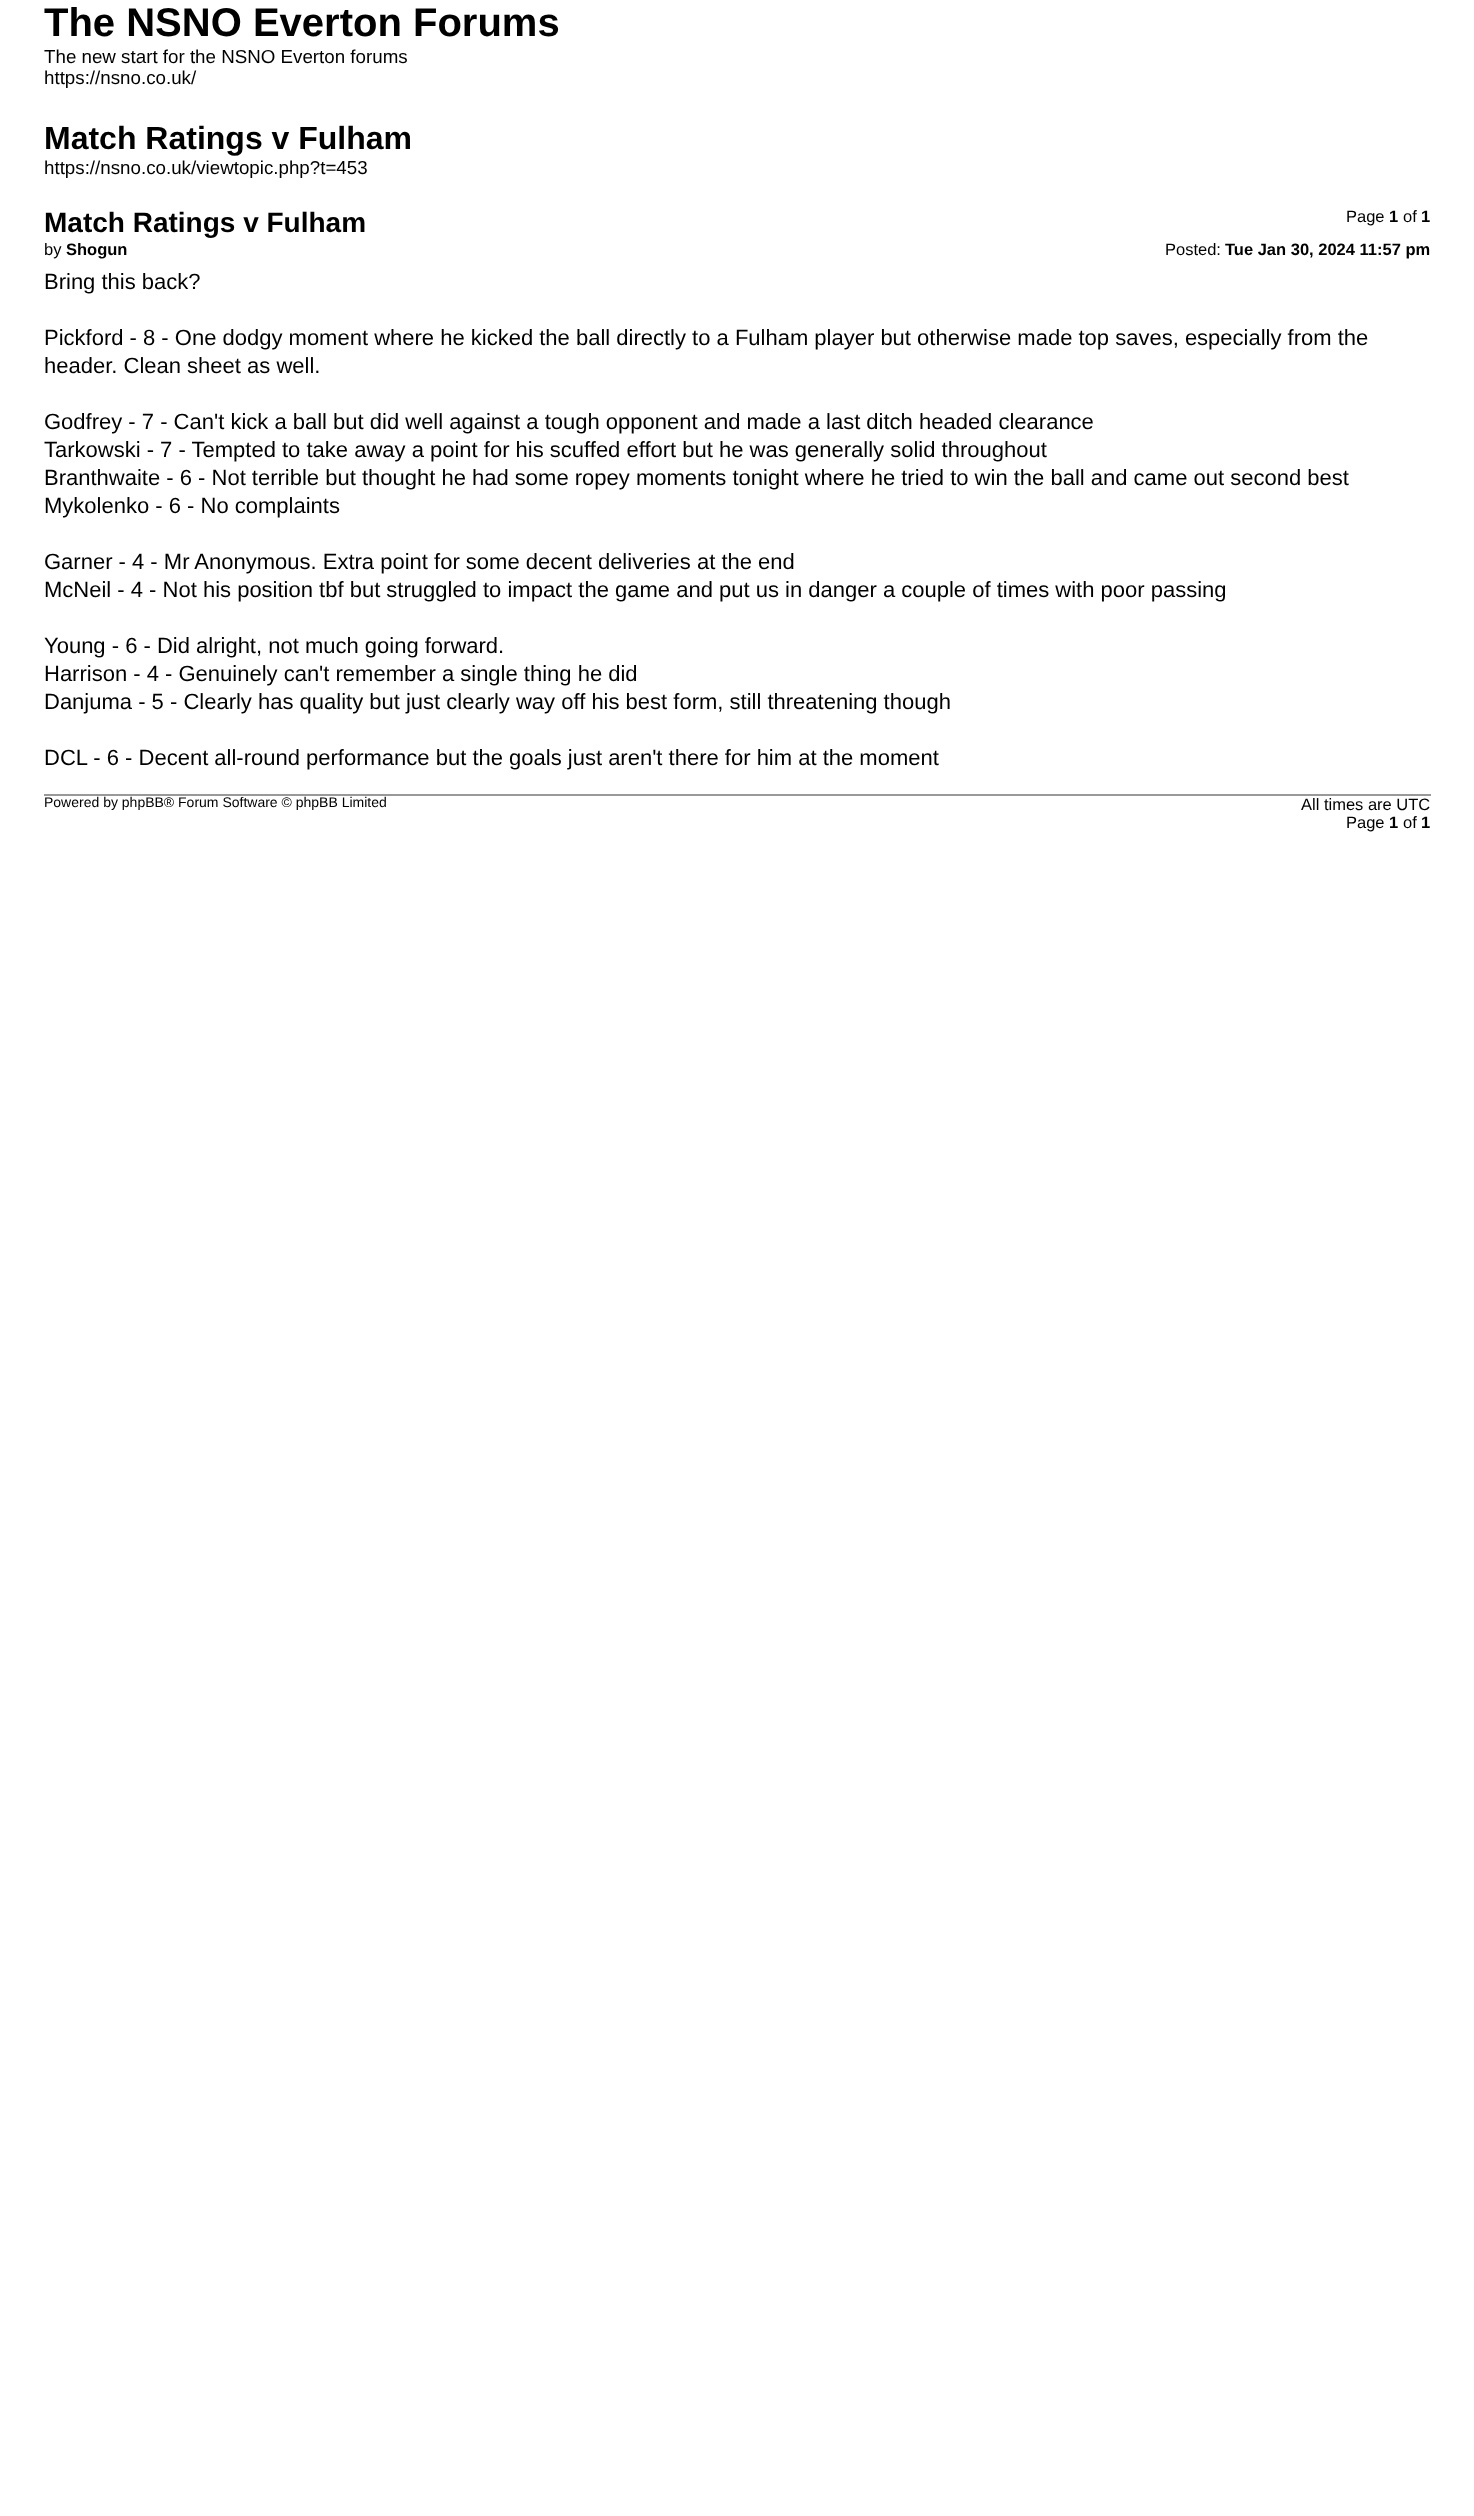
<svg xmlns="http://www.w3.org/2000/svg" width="1474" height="2516">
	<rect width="100%" height="100%" fill="#FFFFFF" />
	<text x="44" y="36" font-family="Liberation Sans" font-size="40" font-weight="700" fill="#000000">The NSNO Everton Forums</text>
	<g font-family="Liberation Sans" font-size="18.75" fill="#000000">
		<text x="44" y="63">The new start for the NSNO Everton forums</text>
		<text x="44" y="84">https://nsno.co.uk/</text>
	</g>
	<text x="44" y="149" font-family="Liberation Sans" font-size="32" font-weight="700" fill="#000000">Match Ratings v Fulham</text>
	<text x="44" y="174" font-family="Liberation Sans" font-size="18.75" fill="#000000">https://nsno.co.uk/viewtopic.php?t=453</text>
	<text x="1346" y="222" font-family="Liberation Sans" font-size="16.5" fill="#000000">Page</text>
	<text x="1389" y="222" font-family="Liberation Sans" font-size="16.5" font-weight="700" fill="#000000">1</text>
	<text x="1403" y="222" font-family="Liberation Sans" font-size="16.5" fill="#000000">of</text>
	<text x="1421" y="222" font-family="Liberation Sans" font-size="16.5" font-weight="700" fill="#000000">1</text>
	<text x="44" y="232" font-family="Liberation Sans" font-size="28" font-weight="700" fill="#000000">Match Ratings v Fulham</text>
	<text x="44" y="255" font-family="Liberation Sans" font-size="16.5" fill="#000000">by</text>
	<text x="66" y="255" font-family="Liberation Sans" font-size="16.5" font-weight="700" fill="#000000">Shogun</text>
	<text x="1165" y="255" font-family="Liberation Sans" font-size="16.5" fill="#000000">Posted:</text>
	<text x="1225" y="255" font-family="Liberation Sans" font-size="16.5" font-weight="700" fill="#000000">Tue Jan 30, 2024 11:57 pm</text>
	<g font-family="Liberation Sans" font-size="22" fill="#000000">
		<text x="44" y="289">Bring this back?</text>
		<text x="44" y="345">Pickford - 8 - One dodgy moment where he kicked the ball directly to a Fulham player but otherwise made top saves, especially from the</text>
		<text x="44" y="373">header. Clean sheet as well.</text>
		<text x="44" y="429">Godfrey - 7 - Can't kick a ball but did well against a tough opponent and made a last ditch headed clearance</text>
		<text x="44" y="457">Tarkowski - 7 - Tempted to take away a point for his scuffed effort but he was generally solid throughout</text>
		<text x="44" y="485">Branthwaite - 6 - Not terrible but thought he had some ropey moments tonight where he tried to win the ball and came out second best</text>
		<text x="44" y="513">Mykolenko - 6 - No complaints</text>
		<text x="44" y="569">Garner - 4 - Mr Anonymous. Extra point for some decent deliveries at the end</text>
		<text x="44" y="597">McNeil - 4 - Not his position tbf but struggled to impact the game and put us in danger a couple of times with poor passing</text>
		<text x="44" y="653">Young - 6 - Did alright, not much going forward.</text>
		<text x="44" y="681">Harrison - 4 - Genuinely can't remember a single thing he did</text>
		<text x="44" y="709">Danjuma - 5 - Clearly has quality but just clearly way off his best form, still threatening though</text>
		<text x="44" y="765">DCL - 6 - Decent all-round performance but the goals just aren't there for him at the moment</text>
	</g>
	<rect x="44" y="794" width="1387" height="2" fill="#999999" />
	<text x="44" y="807" font-family="Liberation Sans" font-size="14" fill="#000000">Powered by phpBB® Forum Software © phpBB Limited</text>
	<g font-family="Liberation Sans" font-size="16.5" fill="#000000">
		<text x="1301" y="810">All times are UTC</text>
		<text x="1346" y="828">Page</text>
	</g>
	<text x="1389" y="828" font-family="Liberation Sans" font-size="16.5" font-weight="700" fill="#000000">1</text>
	<text x="1403" y="828" font-family="Liberation Sans" font-size="16.5" fill="#000000">of</text>
	<text x="1421" y="828" font-family="Liberation Sans" font-size="16.5" font-weight="700" fill="#000000">1</text>
</svg>
